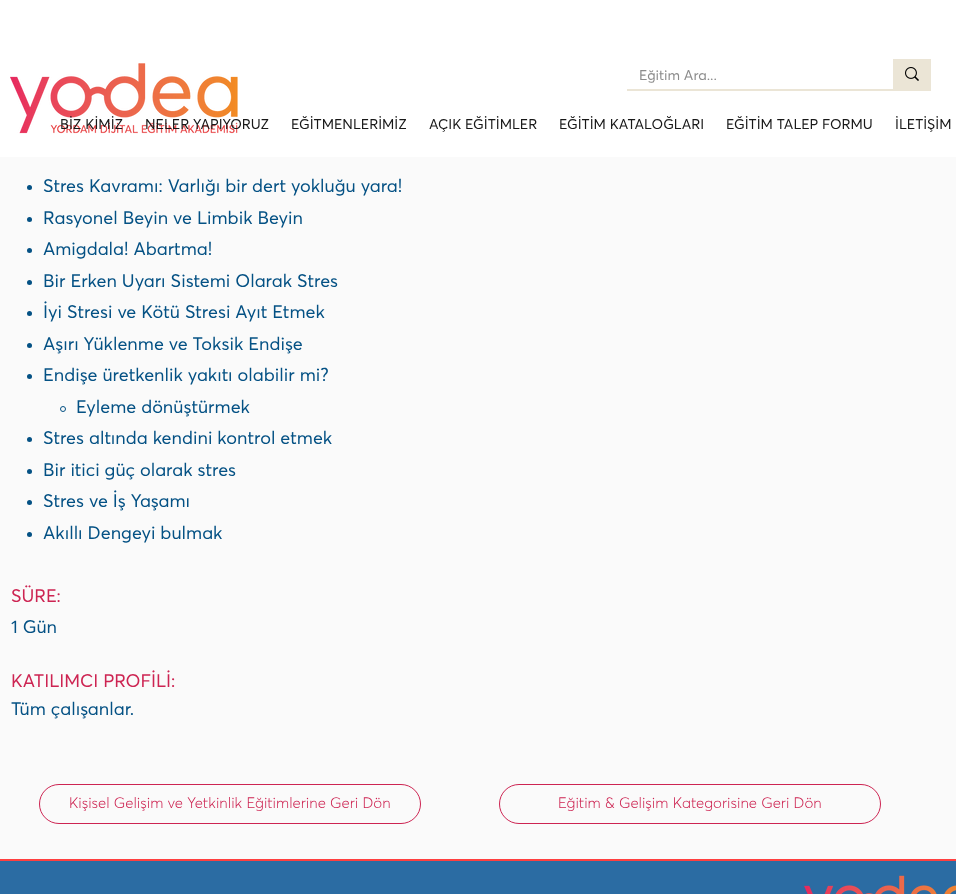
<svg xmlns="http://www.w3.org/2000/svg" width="956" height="894">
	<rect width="100%" height="100%" fill="#FAFAFA" />
	<rect x="0" y="0" width="956" height="157" fill="#FFFFFF" />
	<image x="10" y="63" width="228" height="71" href="assets/img1.png" />
	<rect x="627" y="89" width="304" height="2" fill="#EBE5D6" />
	<text x="639" y="80" font-family="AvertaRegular" font-size="14" fill="#8C8C8C">Eğitim Ara...</text>
	<rect x="893" y="59" width="38" height="30" fill="#EBE5D6" />
	<image x="905" y="67" width="14" height="14" href="assets/img2.png" />
	<g font-family="AvertaRegular" font-size="14" fill="#181818">
		<text x="60" y="129">BİZ KİMİZ</text>
		<text x="145" y="129">NELER YAPIYORUZ</text>
		<text x="291" y="129">EĞİTMENLERİMİZ</text>
		<text x="429" y="129">AÇIK EĞİTİMLER</text>
		<text x="559" y="129">EĞİTİM KATALOĞLARI</text>
		<text x="726" y="129">EĞİTİM TALEP FORMU</text>
		<text x="895" y="129">İLETİŞİM</text>
	</g>
	<circle cx="29.5" cy="187.5" r="2.5" fill="#045184" />
	<text x="43" y="192" font-family="AvertaRegular" font-size="18" fill="#045184">Stres Kavramı: Varlığı bir dert yokluğu yara!</text>
	<circle cx="29.5" cy="219.5" r="2.5" fill="#045184" />
	<text x="43" y="224" font-family="AvertaRegular" font-size="18" fill="#045184">Rasyonel Beyin ve Limbik Beyin</text>
	<circle cx="29.5" cy="250.5" r="2.5" fill="#045184" />
	<text x="43" y="255" font-family="AvertaRegular" font-size="18" fill="#045184">Amigdala! Abartma!</text>
	<circle cx="29.5" cy="282.5" r="2.5" fill="#045184" />
	<text x="43" y="287" font-family="AvertaRegular" font-size="18" fill="#045184">Bir Erken Uyarı Sistemi Olarak Stres</text>
	<circle cx="29.5" cy="313.5" r="2.5" fill="#045184" />
	<text x="43" y="318" font-family="AvertaRegular" font-size="18" fill="#045184">İyi Stresi ve Kötü Stresi Ayıt Etmek</text>
	<circle cx="29.5" cy="345.5" r="2.5" fill="#045184" />
	<text x="43" y="350" font-family="AvertaRegular" font-size="18" fill="#045184">Aşırı Yüklenme ve Toksik Endişe</text>
	<circle cx="29.5" cy="376.5" r="2.5" fill="#045184" />
	<text x="43" y="381" font-family="AvertaRegular" font-size="18" fill="#045184">Endişe üretkenlik yakıtı olabilir mi?</text>
	<circle cx="63" cy="409" r="2.5" fill="none" stroke="#045184" />
	<text x="76" y="413" font-family="AvertaRegular" font-size="18" fill="#045184">Eyleme dönüştürmek</text>
	<circle cx="29.5" cy="439.5" r="2.5" fill="#045184" />
	<text x="43" y="444" font-family="AvertaRegular" font-size="18" fill="#045184">Stres altında kendini kontrol etmek</text>
	<circle cx="29.5" cy="471.5" r="2.5" fill="#045184" />
	<text x="43" y="476" font-family="AvertaRegular" font-size="18" fill="#045184">Bir itici güç olarak stres</text>
	<circle cx="29.5" cy="502.5" r="2.5" fill="#045184" />
	<text x="43" y="507" font-family="AvertaRegular" font-size="18" fill="#045184">Stres ve İş Yaşamı</text>
	<circle cx="29.5" cy="534.5" r="2.5" fill="#045184" />
	<text x="43" y="539" font-family="AvertaRegular" font-size="18" fill="#045184">Akıllı Dengeyi bulmak</text>
	<text x="11" y="602" font-family="AvertaRegular" font-size="18" fill="#CD2452">SÜRE:</text>
	<text x="11" y="633" font-family="AvertaRegular" font-size="18" fill="#045184">1 Gün</text>
	<text x="11" y="687" font-family="AvertaRegular" font-size="18" fill="#CD2452">KATILIMCI PROFİLİ:</text>
	<text x="11" y="715" font-family="AvertaRegular" font-size="18" fill="#045184">Tüm çalışanlar.</text>
	<rect x="39.5" y="784.5" width="381" height="39" rx="19.5" fill="none" stroke="#CD2452" />
	<text x="69" y="808" font-family="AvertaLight" font-size="15" font-weight="300" fill="#CD2452">Kişisel Gelişim ve Yetkinlik Eğitimlerine Geri Dön</text>
	<rect x="499.5" y="784.5" width="381" height="39" rx="19.5" fill="none" stroke="#CD2452" />
	<text x="558" y="808" font-family="AvertaLight" font-size="15" font-weight="300" fill="#CD2452">Eğitim &amp; Gelişim Kategorisine Geri Dön</text>
	<rect x="0" y="861" width="956" height="33" fill="#2B6CA3" />
	<rect x="0" y="859" width="956" height="2" fill="#FF4040" />
	<image x="804" y="875" width="152" height="19" href="assets/img3.png" />
</svg>
